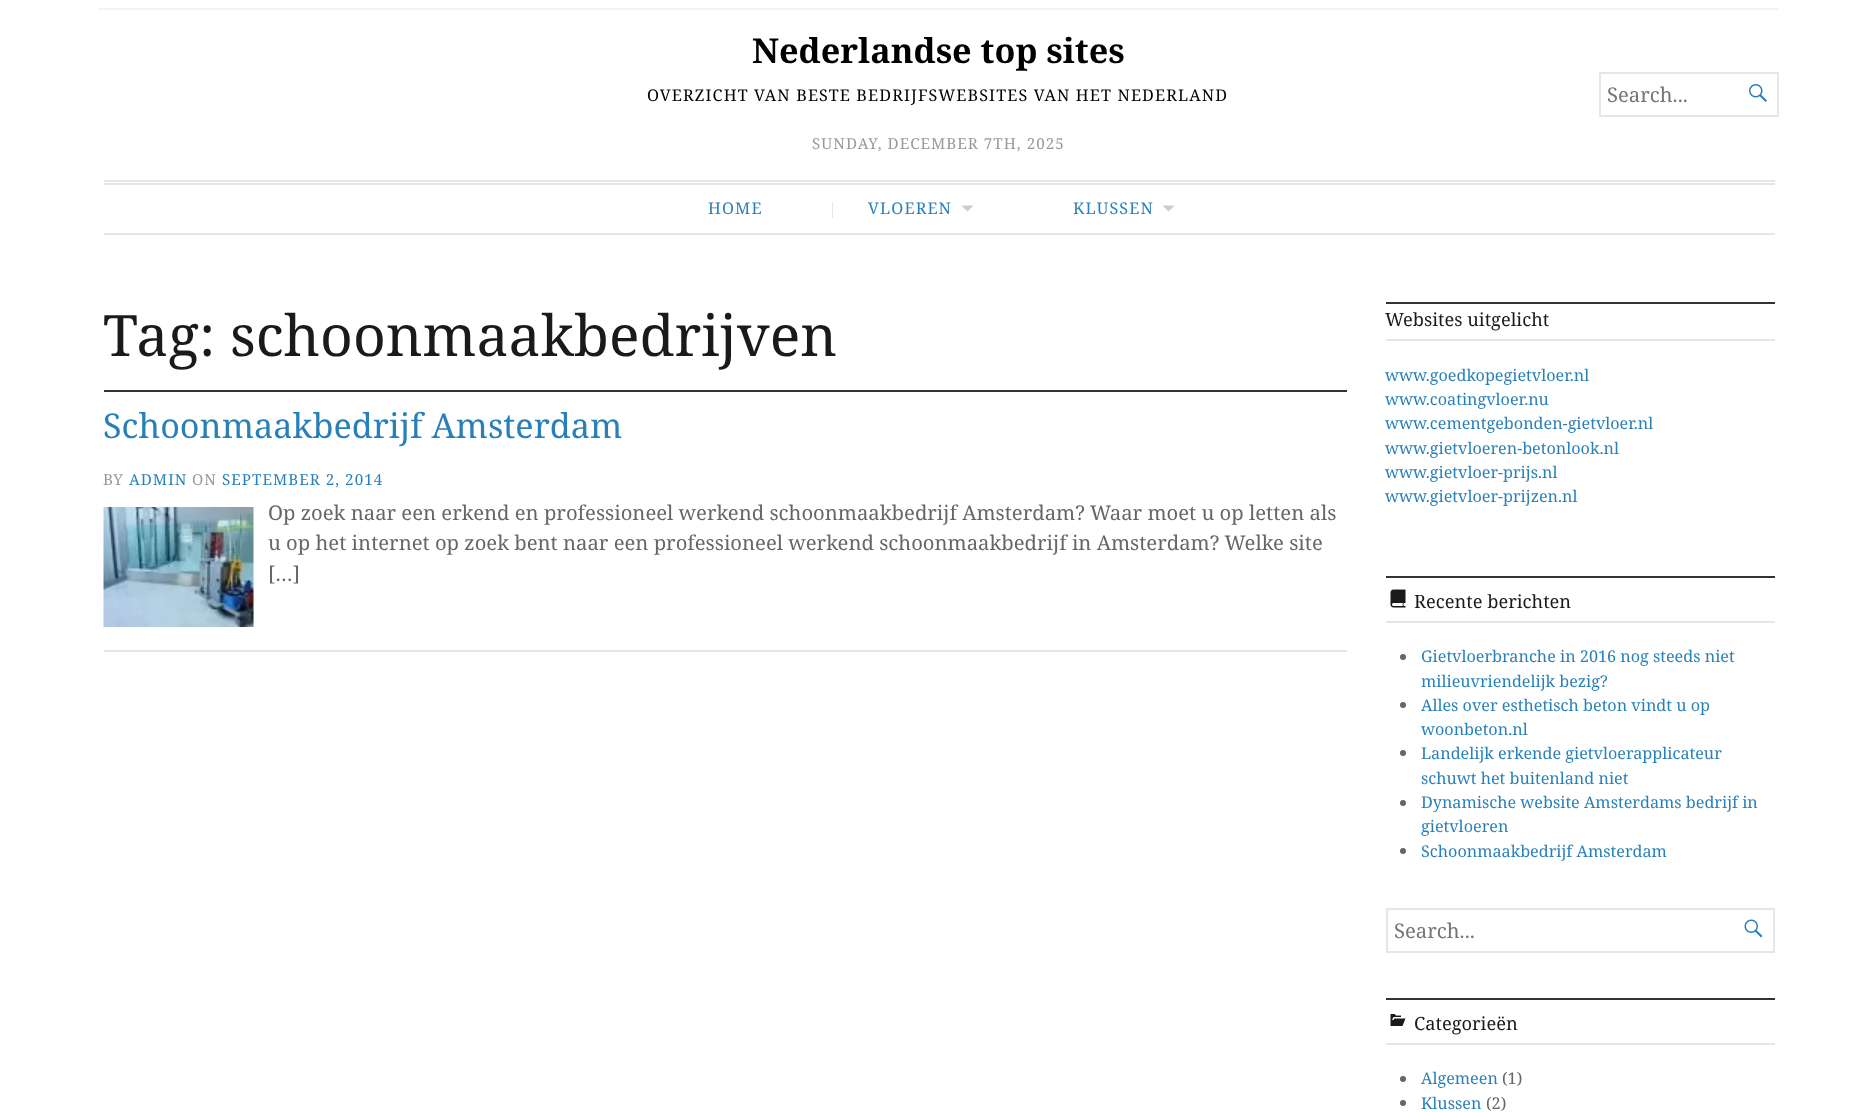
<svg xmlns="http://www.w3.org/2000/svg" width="1876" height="1112">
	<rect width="100%" height="100%" fill="#FFFFFF" />
	<rect x="99" y="8" width="1680" height="2" fill="#F2F2F2" />
	<text x="752" y="63" font-family="Noto Serif" font-size="34.2" font-weight="700" fill="#000000">Nederlandse top sites</text>
	<text x="647" y="101" font-family="Noto Serif" font-size="16.2" letter-spacing="1.13" fill="#000000">OVERZICHT VAN BESTE BEDRIJFSWEBSITES VAN HET NEDERLAND</text>
	<text x="812" y="149" font-family="Noto Serif" font-size="15.2" letter-spacing="1.05" fill="#999999">SUNDAY, DECEMBER 7TH, 2025</text>
	<rect x="1600" y="73" width="178" height="43" fill="none" stroke="#E6E6E6" stroke-width="2" />
	<text x="1607" y="102" font-family="Noto Serif" font-size="20.25" fill="#757575">Search...</text>
	<image x="1749" y="84" width="18" height="18" href="assets/img1.png" />
	<rect x="104" y="180" width="1671" height="2" fill="#E6E6E6" />
	<rect x="104" y="183" width="1671" height="2" fill="#E6E6E6" />
	<rect x="104" y="233" width="1671" height="2" fill="#E6E6E6" />
	<text x="708" y="214" font-family="Noto Serif" font-size="16.2" letter-spacing="1.13" fill="#2980B9">HOME</text>
	<text x="828" y="214" font-family="Noto Serif" font-size="16.2" letter-spacing="1.13" fill="#E6E6E6">|</text>
	<text x="868" y="214" font-family="Noto Serif" font-size="16.2" letter-spacing="1.13" fill="#2980B9">VLOEREN</text>
	<path d="M961.5 205.5H973.5L967.5 211.5Z" fill="#CCCCCC" />
	<text x="1073" y="214" font-family="Noto Serif" font-size="16.2" letter-spacing="1.13" fill="#2980B9">KLUSSEN</text>
	<path d="M1162.5 205.5H1174.5L1168.5 211.5Z" fill="#CCCCCC" />
	<text x="103" y="356" font-family="Noto Serif" font-size="57" fill="#1A1A1A">Tag: schoonmaakbedrijven</text>
	<rect x="104" y="390" width="1243" height="2" fill="#333333" />
	<rect x="104" y="650" width="1243" height="2" fill="#E6E6E6" />
	<text x="103" y="438" font-family="Noto Serif" font-size="34.2" fill="#2980B9">Schoonmaakbedrijf Amsterdam</text>
	<text x="103" y="485" font-family="Noto Serif" font-size="15.2" letter-spacing="1.05" fill="#999999">BY</text>
	<text x="129" y="485" font-family="Noto Serif" font-size="15.2" letter-spacing="1.05" fill="#2980B9">ADMIN</text>
	<text x="192" y="485" font-family="Noto Serif" font-size="15.2" letter-spacing="1.05" fill="#999999">ON</text>
	<text x="222" y="485" font-family="Noto Serif" font-size="15.2" letter-spacing="1.05" fill="#2980B9">SEPTEMBER 2, 2014</text>
	<image x="103" y="507" width="151" height="120" href="assets/img2.png" />
	<g font-family="Noto Serif" font-size="20.25" fill="#666666">
		<text x="268" y="520">Op zoek naar een erkend en professioneel werkend schoonmaakbedrijf Amsterdam? Waar moet u op letten als</text>
		<text x="268" y="550">u op het internet op zoek bent naar een professioneel werkend schoonmaakbedrijf in Amsterdam? Welke site</text>
		<text x="268" y="581">[…]</text>
	</g>
	<rect x="1386" y="302" width="389" height="2" fill="#333333" />
	<rect x="1386" y="339" width="389" height="2" fill="#E6E6E6" />
	<text x="1385" y="326" font-family="Noto Serif" font-size="18.25" fill="#1A1A1A">Websites uitgelicht</text>
	<g font-family="Noto Serif" font-size="16.2" fill="#2980B9">
		<text x="1385" y="381">www.goedkopegietvloer.nl</text>
		<text x="1385" y="405">www.coatingvloer.nu</text>
		<text x="1385" y="429">www.cementgebonden-gietvloer.nl</text>
		<text x="1385" y="454">www.gietvloeren-betonlook.nl</text>
		<text x="1385" y="478">www.gietvloer-prijs.nl</text>
		<text x="1385" y="502">www.gietvloer-prijzen.nl</text>
	</g>
	<rect x="1386" y="576" width="389" height="2" fill="#333333" />
	<rect x="1386" y="621" width="389" height="2" fill="#E6E6E6" />
	<image x="1390" y="589" width="16" height="19" href="assets/img3.png" />
	<text x="1414" y="608" font-family="Noto Serif" font-size="18.25" fill="#1A1A1A">Recente berichten</text>
	<circle cx="1403" cy="657" r="3" fill="#666666" />
	<g font-family="Noto Serif" font-size="16.2" fill="#2980B9">
		<text x="1421" y="662">Gietvloerbranche in 2016 nog steeds niet</text>
		<text x="1421" y="687">milieuvriendelijk bezig?</text>
	</g>
	<circle cx="1403" cy="705" r="3" fill="#666666" />
	<g font-family="Noto Serif" font-size="16.2" fill="#2980B9">
		<text x="1421" y="711">Alles over esthetisch beton vindt u op</text>
		<text x="1421" y="735">woonbeton.nl</text>
	</g>
	<circle cx="1403" cy="753" r="3" fill="#666666" />
	<g font-family="Noto Serif" font-size="16.2" fill="#2980B9">
		<text x="1421" y="759">Landelijk erkende gietvloerapplicateur</text>
		<text x="1421" y="784">schuwt het buitenland niet</text>
	</g>
	<circle cx="1403" cy="803" r="3" fill="#666666" />
	<g font-family="Noto Serif" font-size="16.2" fill="#2980B9">
		<text x="1421" y="808">Dynamische website Amsterdams bedrijf in</text>
		<text x="1421" y="832">gietvloeren</text>
	</g>
	<circle cx="1403" cy="851" r="3" fill="#666666" />
	<text x="1421" y="857" font-family="Noto Serif" font-size="16.2" fill="#2980B9">Schoonmaakbedrijf Amsterdam</text>
	<rect x="1387" y="909" width="387" height="43" fill="none" stroke="#E6E6E6" stroke-width="2" />
	<text x="1394" y="938" font-family="Noto Serif" font-size="20.25" fill="#757575">Search...</text>
	<image x="1744" y="919" width="19" height="19" href="assets/img4.png" />
	<rect x="1386" y="998" width="389" height="2" fill="#333333" />
	<rect x="1386" y="1043" width="389" height="2" fill="#E6E6E6" />
	<image x="1390" y="1014" width="16" height="12" href="assets/img5.png" />
	<text x="1414" y="1030" font-family="Noto Serif" font-size="18.25" fill="#1A1A1A">Categorieën</text>
	<circle cx="1403" cy="1079" r="3" fill="#666666" />
	<text x="1421" y="1084" font-family="Noto Serif" font-size="16.2" fill="#2980B9">Algemeen</text>
	<text x="1502" y="1084" font-family="Noto Serif" font-size="16.2" fill="#666666">(1)</text>
	<circle cx="1403" cy="1103" r="3" fill="#666666" />
	<text x="1421" y="1109" font-family="Noto Serif" font-size="16.2" fill="#2980B9">Klussen</text>
	<text x="1486" y="1109" font-family="Noto Serif" font-size="16.2" fill="#666666">(2)</text>
</svg>
